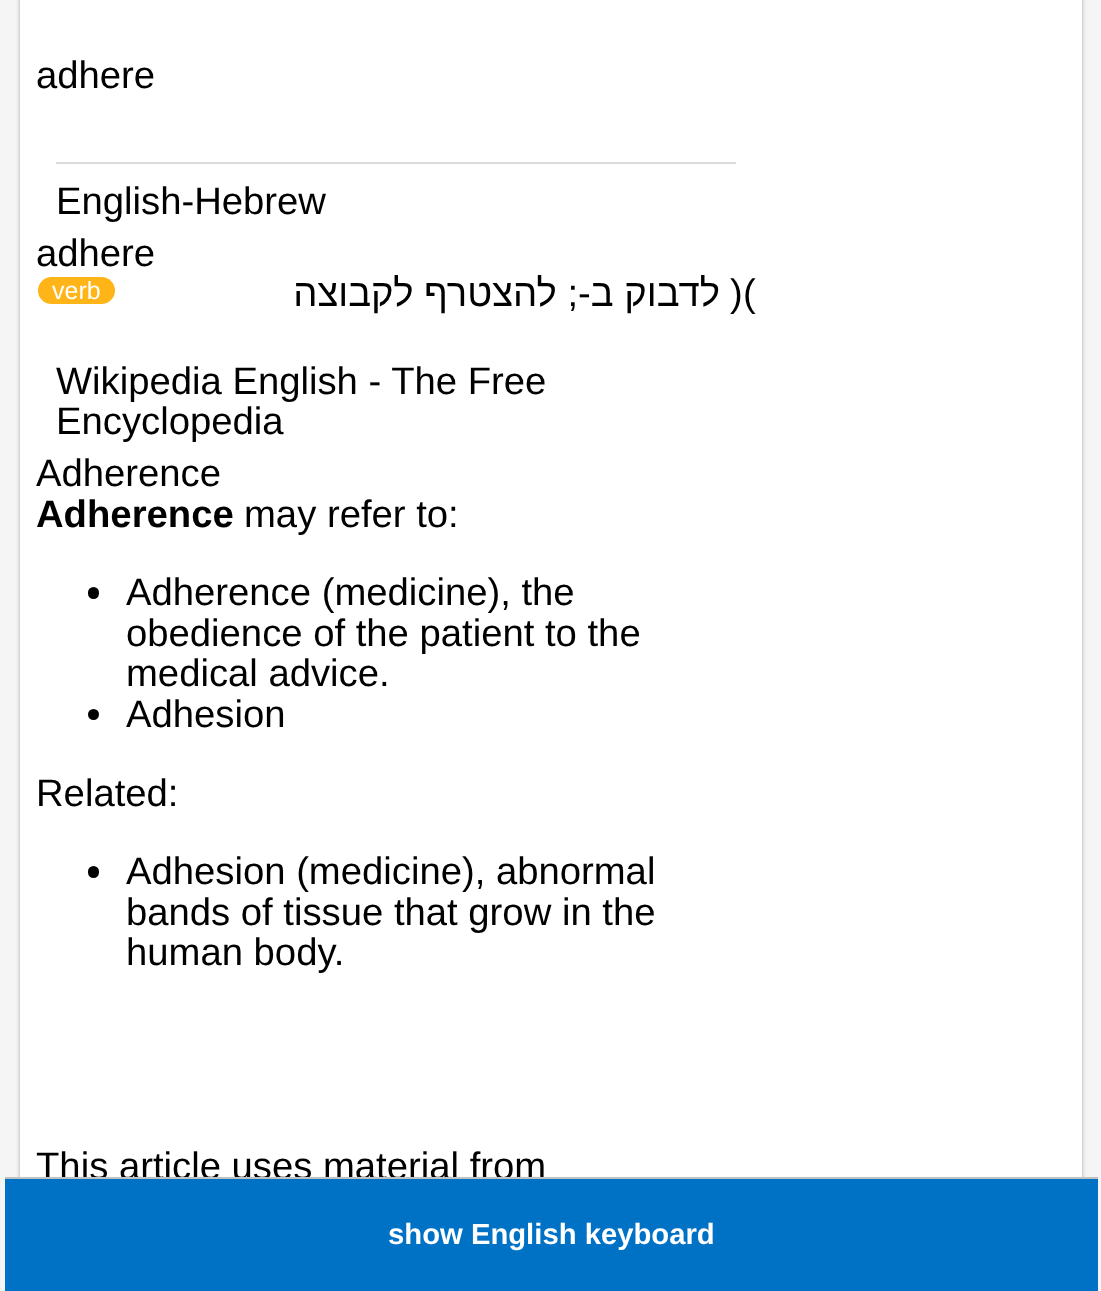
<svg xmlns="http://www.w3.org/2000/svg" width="1101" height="1291">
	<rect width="100%" height="100%" fill="#F5F5F5" />
	<rect x="20" y="-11" width="1062" height="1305" rx="5" fill="#000000" fill-opacity="0.3" filter="blur(2px)" />
	<rect x="20" y="0" width="1062" height="1177" fill="#FFFFFF" />
	<text x="36" y="88" font-family="Liberation Sans" font-size="38.25" fill="#000000">adhere</text>
	<rect x="56" y="162" width="680" height="2" fill="#DBDBDB" />
	<g font-family="Liberation Sans" font-size="38.25" fill="#000000">
		<text x="56" y="214">English-Hebrew</text>
		<text x="36" y="266">adhere</text>
	</g>
	<text x="720" y="306" font-family="Liberation Sans" font-size="38.25" direction="rtl" fill="#000000">לדבוק ב-; להצטרף לקבוצה</text>
	<rect x="38" y="277" width="77" height="27" rx="13.5" fill="#FFB417" />
	<text x="52" y="299" font-family="Liberation Sans" font-size="25" fill="#FFFFFF">verb</text>
	<g font-family="Liberation Sans" font-size="38.25" fill="#000000">
		<text x="730" y="306">)</text>
		<text x="743" y="306">(</text>
		<text x="56" y="394">Wikipedia English - The Free</text>
		<text x="56" y="434">Encyclopedia</text>
		<text x="36" y="486">Adherence</text>
	</g>
	<text x="36" y="527" font-family="Liberation Sans" font-size="38.25" font-weight="700" fill="#000000">Adherence</text>
	<text x="244" y="527" font-family="Liberation Sans" font-size="38.25" fill="#000000">may refer to:</text>
	<rect x="88" y="587" width="11" height="12" rx="5.5" fill="#000000" />
	<g font-family="Liberation Sans" font-size="38.25" fill="#000000">
		<text x="126" y="605">Adherence (medicine), the</text>
		<text x="126" y="646">obedience of the patient to the</text>
		<text x="126" y="686">medical advice.</text>
	</g>
	<circle cx="93.5" cy="714.5" r="5.5" fill="#000000" />
	<g font-family="Liberation Sans" font-size="38.25" fill="#000000">
		<text x="126" y="727">Adhesion</text>
		<text x="36" y="806">Related:</text>
	</g>
	<rect x="88" y="866" width="11" height="12" rx="5.5" fill="#000000" />
	<g font-family="Liberation Sans" font-size="38.25" fill="#000000">
		<text x="126" y="884">Adhesion (medicine), abnormal</text>
		<text x="126" y="925">bands of tissue that grow in the</text>
		<text x="126" y="965">human body.</text>
		<text x="36" y="1179">This article uses material from</text>
	</g>
	<rect x="5" y="1179" width="1093" height="112" fill="#0072C6" />
	<rect x="5" y="1177" width="1093" height="2" fill="#C0C0C0" />
	<text x="388" y="1244" font-family="Liberation Sans" font-size="29.25" font-weight="700" fill="#FFFFFF">show English keyboard</text>
</svg>
